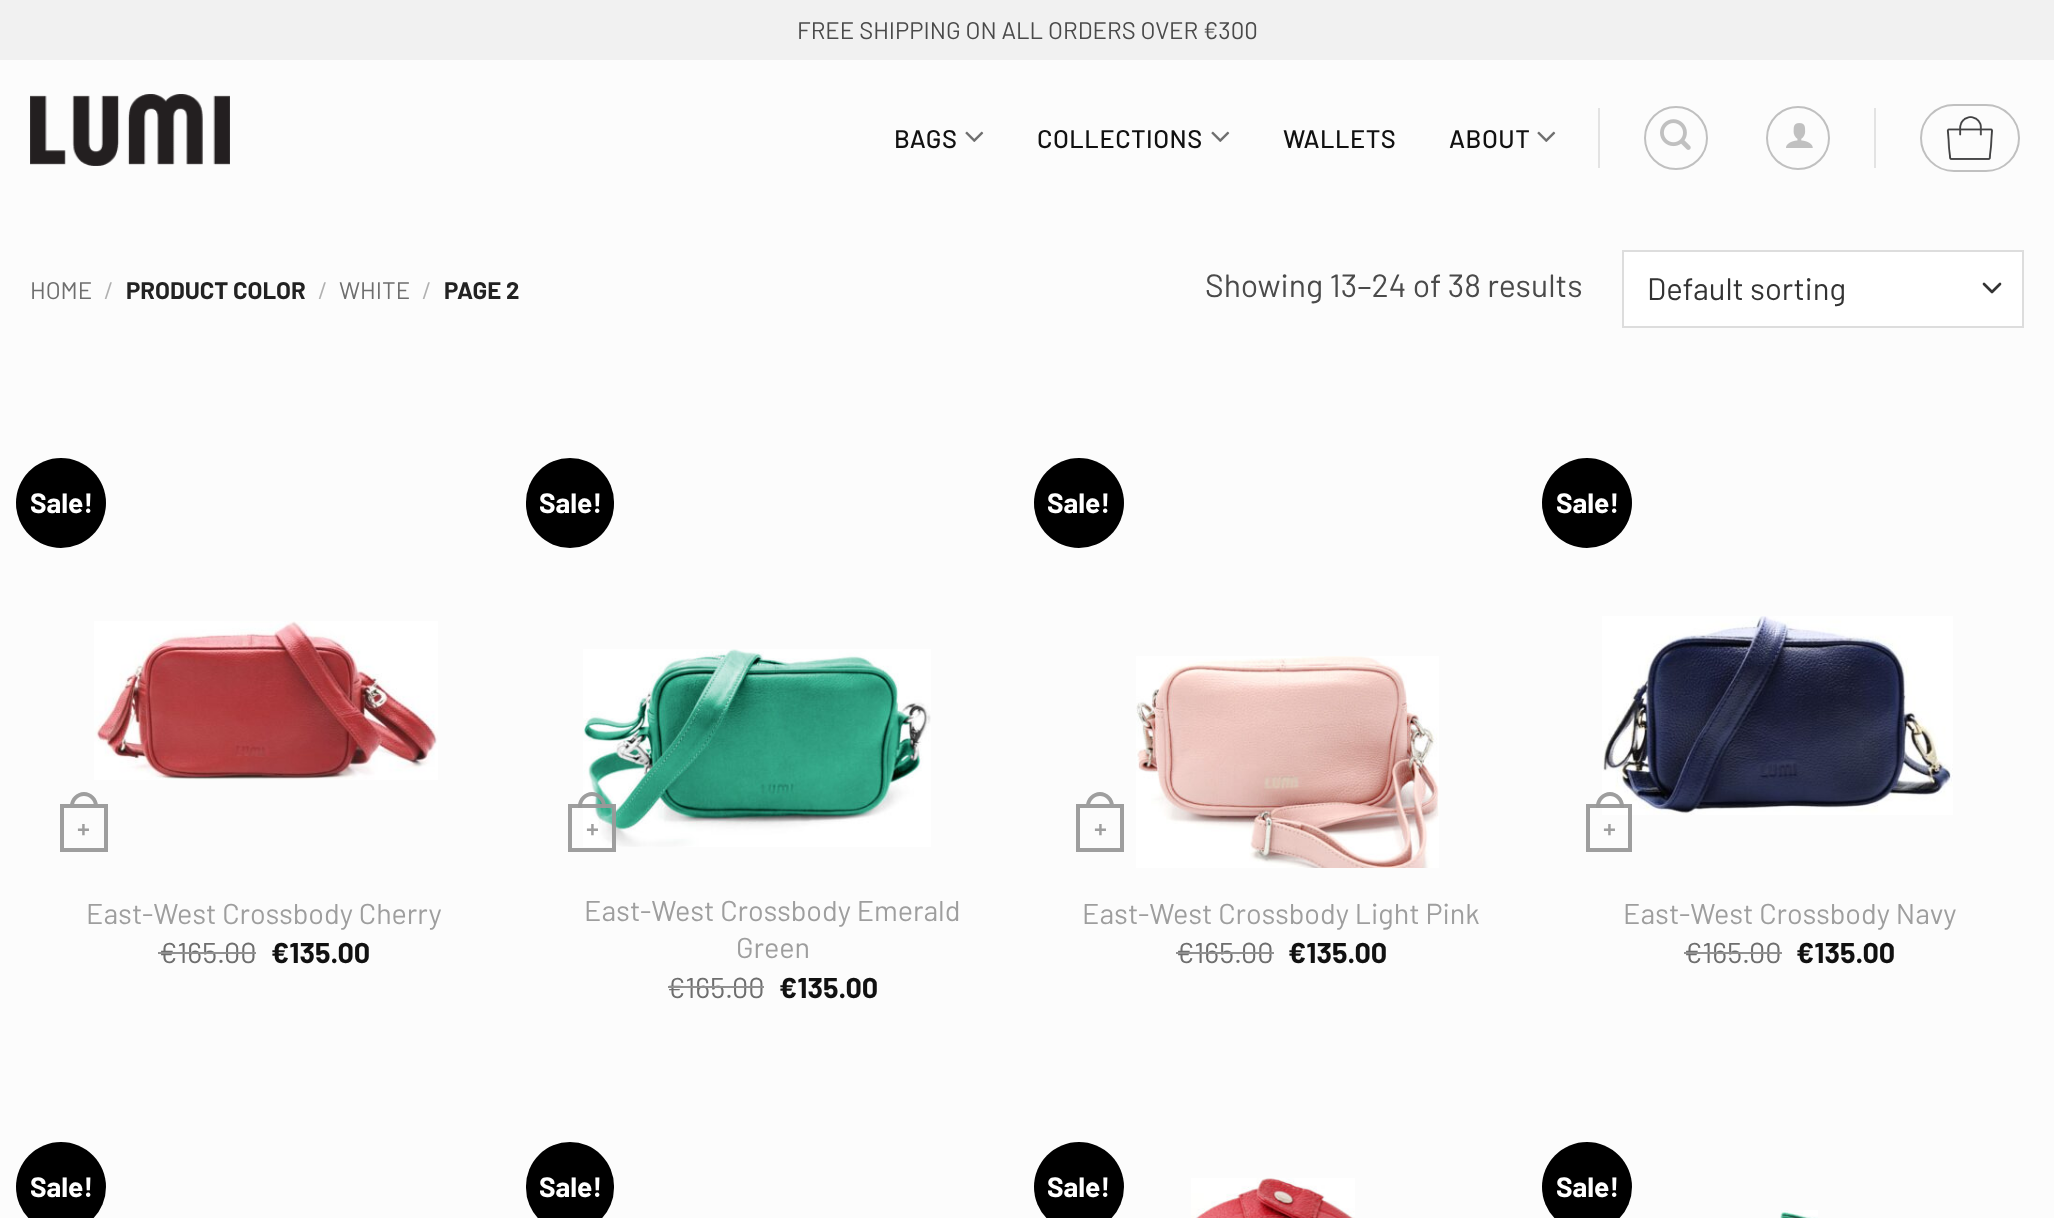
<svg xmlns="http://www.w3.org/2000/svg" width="2054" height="1218">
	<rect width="100%" height="100%" fill="#FCFCFC" />
	<rect x="0" y="0" width="2054" height="60" fill="#F1F1F1" />
	<text x="797" y="39" font-family="Barlow" font-size="24" fill="#4A4A4A">FREE SHIPPING ON ALL ORDERS OVER €300</text>
	<image x="30" y="94" width="200" height="72" href="assets/img1.png" />
	<text x="894" y="148" font-family="Barlow" font-size="25.5" font-weight="500" letter-spacing="0.5" fill="#111111">BAGS</text>
	<image x="965" y="131" width="19" height="11" href="assets/img2.png" />
	<text x="1037" y="148" font-family="Barlow" font-size="25.5" font-weight="500" letter-spacing="0.5" fill="#111111">COLLECTIONS</text>
	<image x="1211" y="131" width="19" height="11" href="assets/img2.png" />
	<g font-family="Barlow" font-size="25.5" font-weight="500" letter-spacing="0.5" fill="#111111">
		<text x="1283" y="148">WALLETS</text>
		<text x="1449" y="148">ABOUT</text>
	</g>
	<image x="1537" y="131" width="19" height="11" href="assets/img2.png" />
	<rect x="1598" y="108" width="2" height="60" fill="#E3E3E3" />
	<circle cx="1676" cy="138" r="31" fill="none" stroke="#C0C0C0" stroke-width="2" />
	<image x="1660" y="119" width="31" height="31" href="assets/img3.png" />
	<circle cx="1798" cy="138" r="31" fill="none" stroke="#C0C0C0" stroke-width="2" />
	<image x="1786" y="123" width="27" height="25" href="assets/img4.png" />
	<rect x="1874" y="108" width="2" height="60" fill="#E3E3E3" />
	<rect x="1921" y="105" width="98" height="66" rx="33" fill="none" stroke="#C0C0C0" stroke-width="2" />
	<image x="1946" y="116" width="47" height="44" href="assets/img5.png" />
	<text x="30" y="299" font-family="Barlow" font-size="24" fill="#6E6E6E">HOME</text>
	<text x="104" y="299" font-family="Barlow" font-size="24" fill="#B0B0B0">/</text>
	<text x="126" y="299" font-family="Barlow" font-size="24" font-weight="700" fill="#222222">PRODUCT COLOR</text>
	<text x="318" y="299" font-family="Barlow" font-size="24" fill="#B0B0B0">/</text>
	<text x="339" y="299" font-family="Barlow" font-size="24" fill="#6E6E6E">WHITE</text>
	<text x="422" y="299" font-family="Barlow" font-size="24" fill="#B0B0B0">/</text>
	<text x="444" y="299" font-family="Barlow" font-size="24" font-weight="700" fill="#222222">PAGE 2</text>
	<text x="1205" y="297" font-family="Barlow" font-size="32" fill="#4A4A4A">Showing 13–24 of 38 results</text>
	<rect x="1624" y="252" width="398" height="74" fill="#FFFFFF" />
	<path d="M1984 284L1992 292L2000 284" fill="none" stroke="#333333" stroke-width="2.7" stroke-linecap="round" stroke-linejoin="round" />
	<rect x="1623" y="251" width="400" height="76" fill="none" stroke="#DDDDDD" stroke-width="2" />
	<text x="1647" y="300" font-family="Barlow" font-size="31" fill="#333333">Default sorting</text>
	<circle cx="61" cy="503" r="45" fill="#000000" />
	<text x="30" y="513" font-family="Barlow" font-size="28" font-weight="700" fill="#FFFFFF">Sale!</text>
	<image x="94" y="621" width="344" height="159" href="assets/img6.png" />
	<rect x="62" y="806" width="44" height="44" fill="none" stroke="#9E9E9E" stroke-width="4" />
	<path d="M84 792C91.5 792 98 798.5 98 806V808H70V806C70 798.5 76.5 792 84 792ZM84 796C89.5 796 94 800.5 94 806V808H74V806C74 800.5 78.5 796 84 796Z" fill="#9E9E9E" fill-rule="evenodd" />
	<text x="77" y="837" font-family="Liberation Sans" font-size="22" font-weight="700" fill="#9E9E9E">+</text>
	<text x="86" y="924" font-family="Barlow" font-size="28.75" fill="#9E9E9E">East-West Crossbody Cherry</text>
	<text x="159" y="963" font-family="Barlow" font-size="28.75" fill="#6E6E6E">€165.00</text>
	<rect x="158" y="952" width="98" height="2" fill="#919191" />
	<text x="271" y="963" font-family="Barlow" font-size="28.75" font-weight="700" fill="#111111">€135.00</text>
	<rect x="526" y="458" width="88" height="90" rx="44" fill="#000000" />
	<text x="539" y="513" font-family="Barlow" font-size="28" font-weight="700" fill="#FFFFFF">Sale!</text>
	<image x="583" y="649" width="348" height="198" href="assets/img7.png" />
	<rect x="570" y="806" width="44" height="44" fill="none" stroke="#999999" stroke-opacity="0.95" stroke-width="4" />
	<path d="M592 792C599.5 792 606 798.5 606 806V808H578V806C578 798.5 584.5 792 592 792ZM592 796C597.5 796 602 800.5 602 806V808H582V806C582 800.5 586.5 796 592 796Z" fill="#999999" fill-opacity="0.95" fill-rule="evenodd" />
	<text x="586" y="837" font-family="Liberation Sans" font-size="22" font-weight="700" fill="#9E9E9E">+</text>
	<g font-family="Barlow" font-size="28.75" fill="#9E9E9E">
		<text x="584" y="921">East-West Crossbody Emerald</text>
		<text x="736" y="958">Green</text>
	</g>
	<text x="667" y="998" font-family="Barlow" font-size="28.75" fill="#6E6E6E">€165.00</text>
	<rect x="668" y="986" width="96" height="2" fill="#919191" />
	<text x="779" y="998" font-family="Barlow" font-size="28.75" font-weight="700" fill="#111111">€135.00</text>
	<circle cx="1079" cy="503" r="45" fill="#000000" />
	<text x="1047" y="513" font-family="Barlow" font-size="28" font-weight="700" fill="#FFFFFF">Sale!</text>
	<rect x="1078" y="806" width="44" height="44" fill="none" stroke="#9E9E9E" stroke-width="4" />
	<path d="M1100 792C1107.5 792 1114 798.5 1114 806V808H1086V806C1086 798.5 1092.5 792 1100 792ZM1100 796C1105.5 796 1110 800.5 1110 806V808H1090V806C1090 800.5 1094.5 796 1100 796Z" fill="#9E9E9E" fill-rule="evenodd" />
	<text x="1094" y="837" font-family="Liberation Sans" font-size="22" font-weight="700" fill="#9E9E9E">+</text>
	<image x="1136" y="656" width="303" height="212" href="assets/img8.png" />
	<text x="1082" y="924" font-family="Barlow" font-size="28.75" fill="#9E9E9E">East-West Crossbody Light Pink</text>
	<text x="1176" y="963" font-family="Barlow" font-size="28.75" fill="#6E6E6E">€165.00</text>
	<rect x="1176" y="952" width="98" height="2" fill="#919191" />
	<text x="1288" y="963" font-family="Barlow" font-size="28.75" font-weight="700" fill="#111111">€135.00</text>
	<circle cx="1587" cy="503" r="45" fill="#000000" />
	<text x="1556" y="513" font-family="Barlow" font-size="28" font-weight="700" fill="#FFFFFF">Sale!</text>
	<image x="1602" y="616" width="351" height="199" href="assets/img9.png" />
	<rect x="1588" y="806" width="42" height="44" fill="none" stroke="#999999" stroke-opacity="0.95" stroke-width="4" />
	<path d="M1610 792C1617.5 792 1624 798.5 1624 806V808H1596V806C1596 798.5 1602.5 792 1610 792ZM1610 796C1615.5 796 1620 800.5 1620 806V808H1600V806C1600 800.5 1604.5 796 1610 796Z" fill="#999999" fill-opacity="0.95" fill-rule="evenodd" />
	<text x="1603" y="837" font-family="Liberation Sans" font-size="22" font-weight="700" fill="#9E9E9E">+</text>
	<text x="1623" y="924" font-family="Barlow" font-size="28.75" fill="#9E9E9E">East-West Crossbody Navy</text>
	<text x="1684" y="963" font-family="Barlow" font-size="28.75" fill="#6E6E6E">€165.00</text>
	<rect x="1684" y="952" width="98" height="2" fill="#919191" />
	<text x="1796" y="963" font-family="Barlow" font-size="28.75" font-weight="700" fill="#111111">€135.00</text>
	<circle cx="61" cy="1187" r="45" fill="#000000" />
	<text x="30" y="1197" font-family="Barlow" font-size="28" font-weight="700" fill="#FFFFFF">Sale!</text>
	<rect x="526" y="1142" width="88" height="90" rx="44" fill="#000000" />
	<text x="539" y="1197" font-family="Barlow" font-size="28" font-weight="700" fill="#FFFFFF">Sale!</text>
	<circle cx="1079" cy="1187" r="45" fill="#000000" />
	<text x="1047" y="1197" font-family="Barlow" font-size="28" font-weight="700" fill="#FFFFFF">Sale!</text>
	<image x="1191" y="1178" width="164" height="40" href="assets/img10.png" />
	<circle cx="1587" cy="1187" r="45" fill="#000000" />
	<text x="1556" y="1197" font-family="Barlow" font-size="28" font-weight="700" fill="#FFFFFF">Sale!</text>
	<image x="1780" y="1210" width="38" height="8" href="assets/img11.png" />
</svg>
